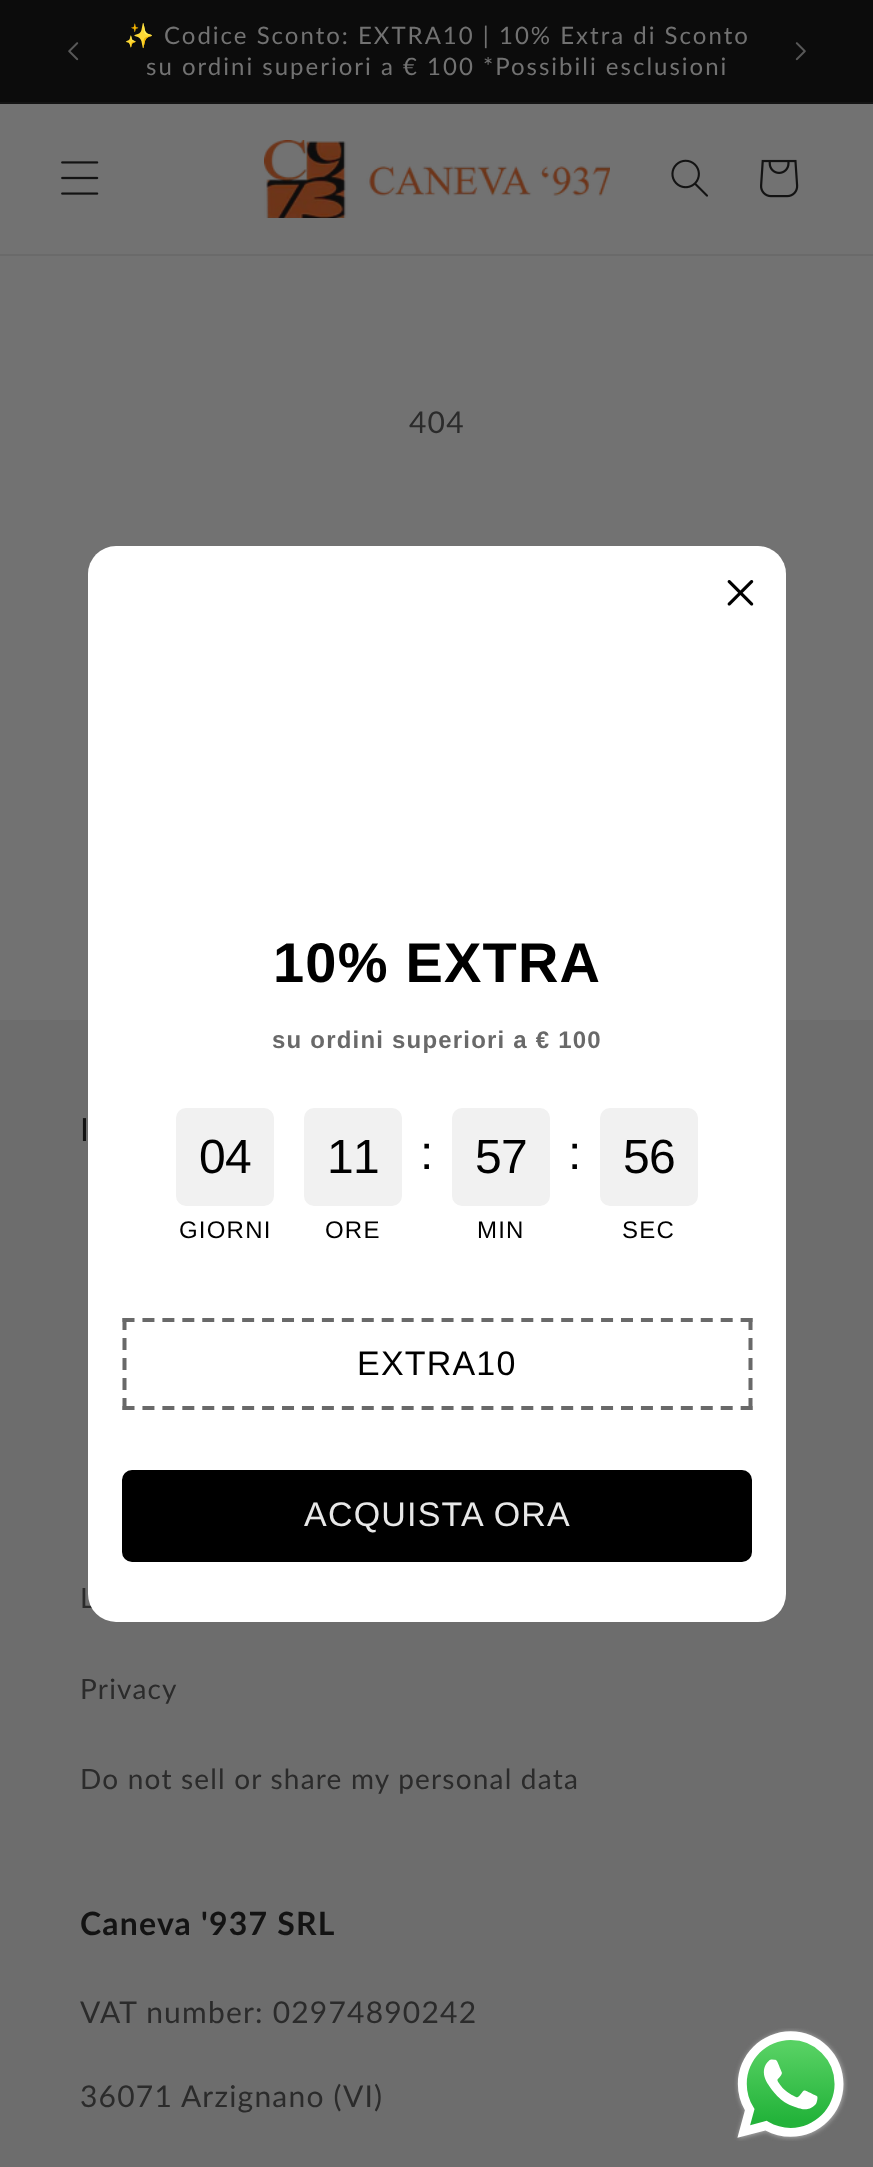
<svg xmlns="http://www.w3.org/2000/svg" width="873" height="2167">
	<rect width="100%" height="100%" fill="#727272" />
	<rect x="0" y="0" width="873" height="102" fill="#0C0C0C" />
	<rect x="0" y="102" width="873" height="2" fill="#141414" />
	<image x="68" y="42" width="11" height="19" href="assets/img1.png" />
	<text x="124" y="44" font-family="Noto Color Emoji" font-size="24" letter-spacing="2" fill="#727272">✨</text>
	<g font-family="Lato" font-size="24" letter-spacing="2" fill="#727272">
		<text x="164" y="44">Codice Sconto: EXTRA10 | 10% Extra di Sconto</text>
		<text x="146" y="75">su ordini superiori a € 100 *Possibili esclusioni</text>
	</g>
	<image x="795" y="42" width="11" height="19" href="assets/img2.png" />
	<rect x="0" y="254" width="873" height="2" fill="#6A6A6A" />
	<image x="61" y="161" width="38" height="34" href="assets/img3.png" />
	<image x="264" y="140" width="346" height="78" href="assets/img4.png" />
	<image x="671" y="159" width="37" height="38" href="assets/img5.png" />
	<image x="760" y="159" width="39" height="39" href="assets/img6.png" />
	<text x="409" y="433" font-family="Lato" font-size="30" letter-spacing="1.2" fill="#2B2B2B">404</text>
	<rect x="0" y="1020" width="873" height="1147" fill="#6D6D6D" />
	<text x="80" y="1608" font-family="Lato" font-size="28" letter-spacing="1.2" fill="#2B2B2B">L</text>
	<rect x="88" y="546" width="698" height="1076" rx="28" fill="#FFFFFF" />
	<image x="727" y="580" width="27" height="26" href="assets/img7.png" />
	<text x="273" y="982" font-family="Liberation Sans" font-size="56" font-weight="700" letter-spacing="1.2" fill="#000000">10% EXTRA</text>
	<text x="272" y="1048" font-family="Liberation Sans" font-size="24" font-weight="700" letter-spacing="1.2" fill="#696969">su ordini superiori a € 100</text>
	<rect x="178" y="1110" width="94" height="94" rx="8" fill="#F1F1F1" stroke="#F1F1F1" stroke-width="4" />
	<g font-family="Liberation Sans" font-size="48" letter-spacing="6" fill="#000000">
		<text x="199" y="1173">0</text>
		<text x="225" y="1173">4</text>
	</g>
	<text x="179" y="1238" font-family="Liberation Sans" font-size="24" letter-spacing="1.2" fill="#000000">GIORNI</text>
	<rect x="306" y="1110" width="94" height="94" rx="8" fill="#F1F1F1" stroke="#F1F1F1" stroke-width="4" />
	<g font-family="Liberation Sans" font-size="48" letter-spacing="6" fill="#000000">
		<text x="327" y="1173">1</text>
		<text x="353" y="1173">1</text>
	</g>
	<text x="325" y="1238" font-family="Liberation Sans" font-size="24" letter-spacing="1.2" fill="#000000">ORE</text>
	<text x="420" y="1169" font-family="Liberation Sans" font-size="48" letter-spacing="1.2" fill="#000000">:</text>
	<rect x="454" y="1110" width="94" height="94" rx="8" fill="#F1F1F1" stroke="#F1F1F1" stroke-width="4" />
	<g font-family="Liberation Sans" font-size="48" letter-spacing="6" fill="#000000">
		<text x="475" y="1173">5</text>
		<text x="501" y="1173">7</text>
	</g>
	<text x="477" y="1238" font-family="Liberation Sans" font-size="24" letter-spacing="1.2" fill="#000000">MIN</text>
	<text x="568" y="1169" font-family="Liberation Sans" font-size="48" letter-spacing="1.2" fill="#000000">:</text>
	<rect x="602" y="1110" width="94" height="94" rx="8" fill="#F1F1F1" stroke="#F1F1F1" stroke-width="4" />
	<g font-family="Liberation Sans" font-size="48" letter-spacing="6" fill="#000000">
		<text x="623" y="1173">5</text>
		<text x="649" y="1173">6</text>
	</g>
	<text x="622" y="1238" font-family="Liberation Sans" font-size="24" letter-spacing="1.2" fill="#000000">SEC</text>
	<path d="M122.5 1320H752.5" fill="none" stroke="#696969" stroke-width="4" stroke-dasharray="12 7.94" />
	<path d="M750.5 1318V1410" fill="none" stroke="#696969" stroke-width="4" stroke-dasharray="12 8" />
	<path d="M122.5 1408H752.5" fill="none" stroke="#696969" stroke-width="4" stroke-dasharray="12 7.94" />
	<path d="M124.5 1318V1410" fill="none" stroke="#696969" stroke-width="4" stroke-dasharray="12 8" />
	<text x="357" y="1375" font-family="Liberation Sans" font-size="34" letter-spacing="1.2" fill="#000000">EXTRA10</text>
	<rect x="124" y="1472" width="626" height="88" rx="8" fill="#000000" stroke="#000000" stroke-width="4" />
	<text x="304" y="1526" font-family="Liberation Sans" font-size="34" letter-spacing="1.2" fill="#E8E8E8">ACQUISTA ORA</text>
	<text x="80" y="1141" font-family="Lato" font-size="32" letter-spacing="1.2" fill="#131313">I</text>
	<g font-family="Lato" font-size="28" letter-spacing="1.2" fill="#2B2B2B">
		<text x="80" y="1699">Privacy</text>
		<text x="80" y="1789">Do not sell or share my personal data</text>
	</g>
	<text x="80" y="1935" font-family="Lato" font-size="32" font-weight="700" letter-spacing="1.2" fill="#131313">Caneva '937 SRL</text>
	<g font-family="Lato" font-size="30" letter-spacing="1.2" fill="#2B2B2B">
		<text x="80" y="2023">VAT number: 02974890242</text>
		<text x="80" y="2107">36071 Arzignano (VI)</text>
	</g>
	<image x="734" y="2028" width="114" height="113" href="assets/img8.png" />
</svg>
